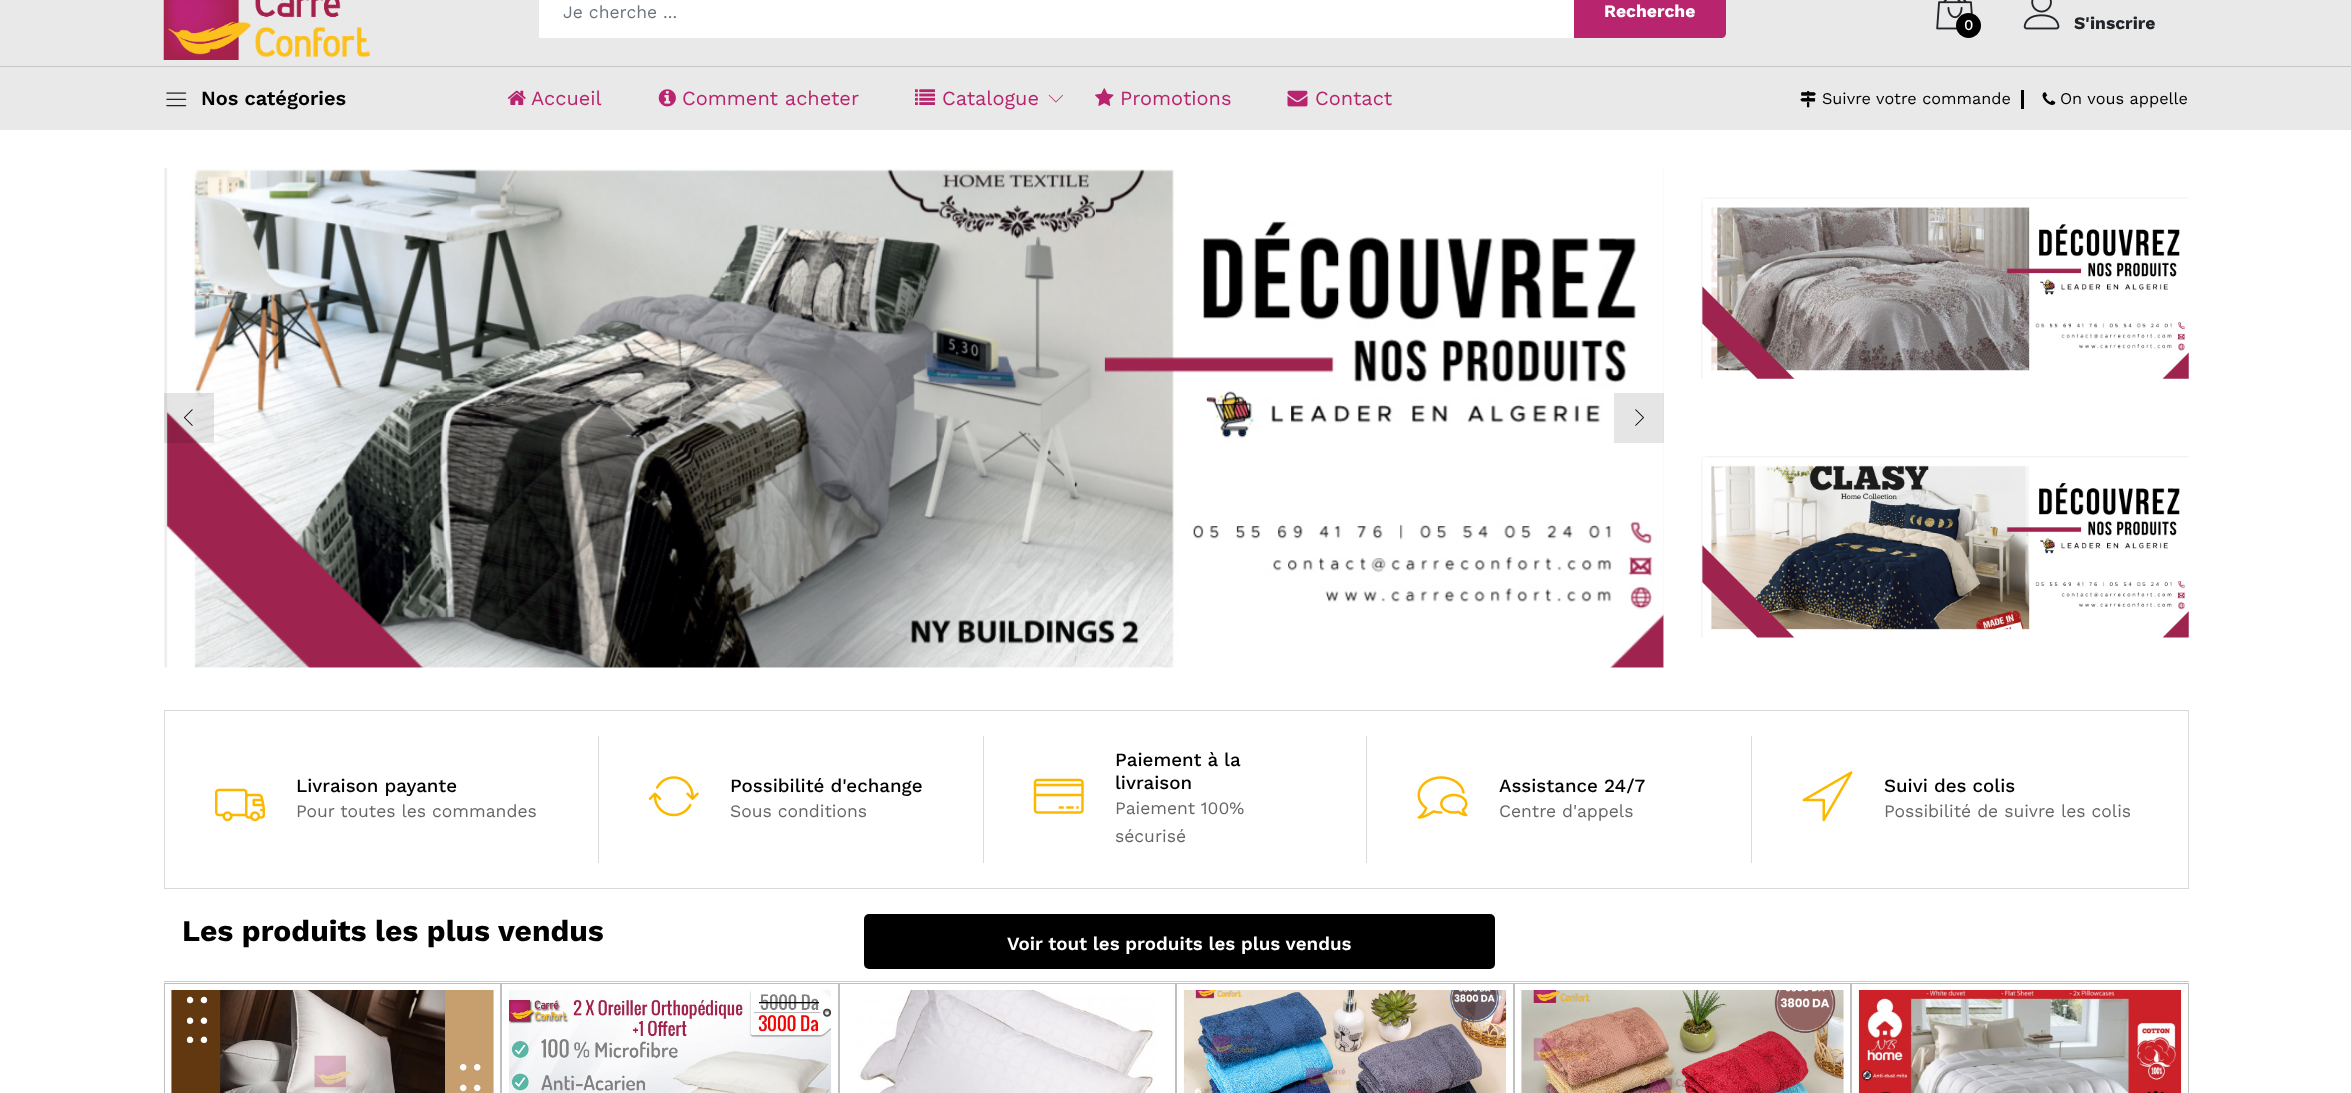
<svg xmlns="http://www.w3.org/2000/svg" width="2351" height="1093">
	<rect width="100%" height="100%" fill="#FFFFFF" />
	<rect x="0" y="0" width="2351" height="130" fill="#E9E9E9" />
	<rect x="0" y="66" width="2351" height="1" fill="#C6C6C6" />
	<image x="163" y="0" width="207" height="60" href="assets/img1.png" />
	<rect x="539" y="0" width="1035" height="38" fill="#FFFFFF" />
	<text x="563" y="18" font-family="Work Sans" font-size="17.5" fill="#6C757D">Je cherche ...</text>
	<path d="M1574-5H1721C1724-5 1726-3 1726 0V33C1726 36 1724 38 1721 38H1574Z" fill="#B8246E" />
	<text x="1604" y="17" font-family="Work Sans" font-size="17.5" font-weight="700" fill="#FFFFFF">Recherche</text>
	<image x="1936" y="0" width="37" height="30" href="assets/img2.png" />
	<circle cx="1968.5" cy="25.5" r="12.5" fill="#000000" />
	<text x="1964" y="30" font-family="Work Sans" font-size="15" font-weight="500" fill="#FFFFFF">0</text>
	<image x="2023" y="0" width="37" height="30" href="assets/img3.png" />
	<text x="2074" y="29" font-family="Work Sans" font-size="17.5" font-weight="700" fill="#212529">S'inscrire</text>
	<image x="166" y="92" width="21" height="15" href="assets/img4.png" />
	<text x="201" y="105" font-family="Work Sans" font-size="20" font-weight="600" fill="#000000">Nos catégories</text>
	<image x="507" y="90" width="19" height="15" href="assets/img5.png" />
	<text x="531" y="105" font-family="Work Sans" font-size="20" fill="#B8246E">Accueil</text>
	<image x="658" y="89" width="18" height="18" href="assets/img6.png" />
	<text x="682" y="105" font-family="Work Sans" font-size="20" fill="#B8246E">Comment acheter</text>
	<image x="915" y="89" width="20" height="16" href="assets/img7.png" />
	<text x="942" y="105" font-family="Work Sans" font-size="20" fill="#B8246E">Catalogue</text>
	<image x="1048" y="94" width="15" height="9" href="assets/img8.png" />
	<image x="1095" y="88" width="19" height="18" href="assets/img9.png" />
	<text x="1120" y="105" font-family="Work Sans" font-size="20" fill="#B8246E">Promotions</text>
	<image x="1287" y="90" width="21" height="17" href="assets/img10.png" />
	<text x="1315" y="105" font-family="Work Sans" font-size="20" fill="#B8246E">Contact</text>
	<image x="1800" y="91" width="16" height="17" href="assets/img11.png" />
	<text x="1822" y="104" font-family="Work Sans" font-size="16.25" fill="#000000">Suivre votre commande</text>
	<rect x="2021" y="90" width="3" height="19" fill="#000000" />
	<image x="2042" y="92" width="14" height="13" href="assets/img12.png" />
	<text x="2060" y="104" font-family="Work Sans" font-size="16.25" fill="#000000">On vous appelle</text>
	<image x="164" y="168" width="1500" height="500" href="assets/img13.png" />
	<image x="1663" y="168" width="1" height="500" href="assets/img14.png" />
	<rect x="164" y="393" width="50" height="50" fill="#000000" fill-opacity="0.1" />
	<image x="184" y="409" width="9" height="17" href="assets/img15.png" />
	<rect x="1614" y="393" width="50" height="50" fill="#000000" fill-opacity="0.1" />
	<image x="1635" y="409" width="9" height="17" href="assets/img16.png" />
	<image x="1701" y="197" width="488" height="182" href="assets/img17.png" />
	<image x="1701" y="456" width="488" height="182" href="assets/img18.png" />
	<rect x="164.5" y="710.5" width="2024" height="178" fill="none" stroke="#D9D9D9" />
	<rect x="598" y="736" width="1" height="127" fill="#DADADA" />
	<image x="215" y="788" width="50" height="34" href="assets/img19.png" />
	<text x="296" y="792" font-family="Work Sans" font-size="18.75" font-weight="500" fill="#000000">Livraison payante</text>
	<text x="296" y="817" font-family="Work Sans" font-size="17.5" fill="#666666">Pour toutes les commandes</text>
	<rect x="983" y="736" width="1" height="127" fill="#DADADA" />
	<image x="648" y="776" width="51" height="41" href="assets/img20.png" />
	<text x="730" y="792" font-family="Work Sans" font-size="18.75" font-weight="500" fill="#000000">Possibilité d'echange</text>
	<text x="730" y="817" font-family="Work Sans" font-size="17.5" fill="#666666">Sous conditions</text>
	<rect x="1366" y="736" width="1" height="127" fill="#DADADA" />
	<image x="1033" y="778" width="51" height="36" href="assets/img21.png" />
	<g font-family="Work Sans" font-size="18.75" font-weight="500" fill="#000000">
		<text x="1115" y="766">Paiement à la</text>
		<text x="1115" y="789">livraison</text>
	</g>
	<g font-family="Work Sans" font-size="17.5" fill="#666666">
		<text x="1115" y="814">Paiement 100%</text>
		<text x="1115" y="842">sécurisé</text>
	</g>
	<rect x="1751" y="736" width="1" height="127" fill="#DADADA" />
	<image x="1417" y="776" width="51" height="43" href="assets/img22.png" />
	<text x="1499" y="792" font-family="Work Sans" font-size="18.75" font-weight="500" fill="#000000">Assistance 24/7</text>
	<text x="1499" y="817" font-family="Work Sans" font-size="17.5" fill="#666666">Centre d'appels</text>
	<image x="1802" y="771" width="51" height="51" href="assets/img23.png" />
	<text x="1884" y="792" font-family="Work Sans" font-size="18.75" font-weight="500" fill="#000000">Suivi des colis</text>
	<text x="1884" y="817" font-family="Work Sans" font-size="17.5" fill="#666666">Possibilité de suivre les colis</text>
	<rect x="164" y="981" width="2025" height="1" fill="#CCCCCC" />
	<text x="182" y="941" font-family="Work Sans" font-size="30" font-weight="700" fill="#000000">Les produits les plus vendus</text>
	<rect x="864" y="914" width="631" height="55" rx="5" fill="#000000" />
	<text x="1007" y="950" font-family="Work Sans" font-size="18.75" font-weight="600" fill="#FFFFFF">Voir tout les produits les plus vendus</text>
	<rect x="164.5" y="983.5" width="336" height="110" fill="none" stroke="#C0C0C0" />
	<image x="171" y="990" width="323" height="103" href="assets/img24.png" />
	<rect x="501.5" y="983.5" width="337" height="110" fill="none" stroke="#C0C0C0" />
	<image x="509" y="990" width="323" height="103" href="assets/img25.png" />
	<rect x="839.5" y="983.5" width="336" height="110" fill="none" stroke="#C0C0C0" />
	<image x="858" y="990" width="298" height="103" href="assets/img26.png" />
	<rect x="1176.5" y="983.5" width="337" height="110" fill="none" stroke="#C0C0C0" />
	<image x="1183" y="990" width="324" height="103" href="assets/img27.png" />
	<rect x="1514.5" y="983.5" width="336" height="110" fill="none" stroke="#C0C0C0" />
	<image x="1521" y="990" width="323" height="103" href="assets/img28.png" />
	<rect x="1851.5" y="983.5" width="337" height="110" fill="none" stroke="#C0C0C0" />
	<image x="1858" y="990" width="324" height="103" href="assets/img29.png" />
</svg>
